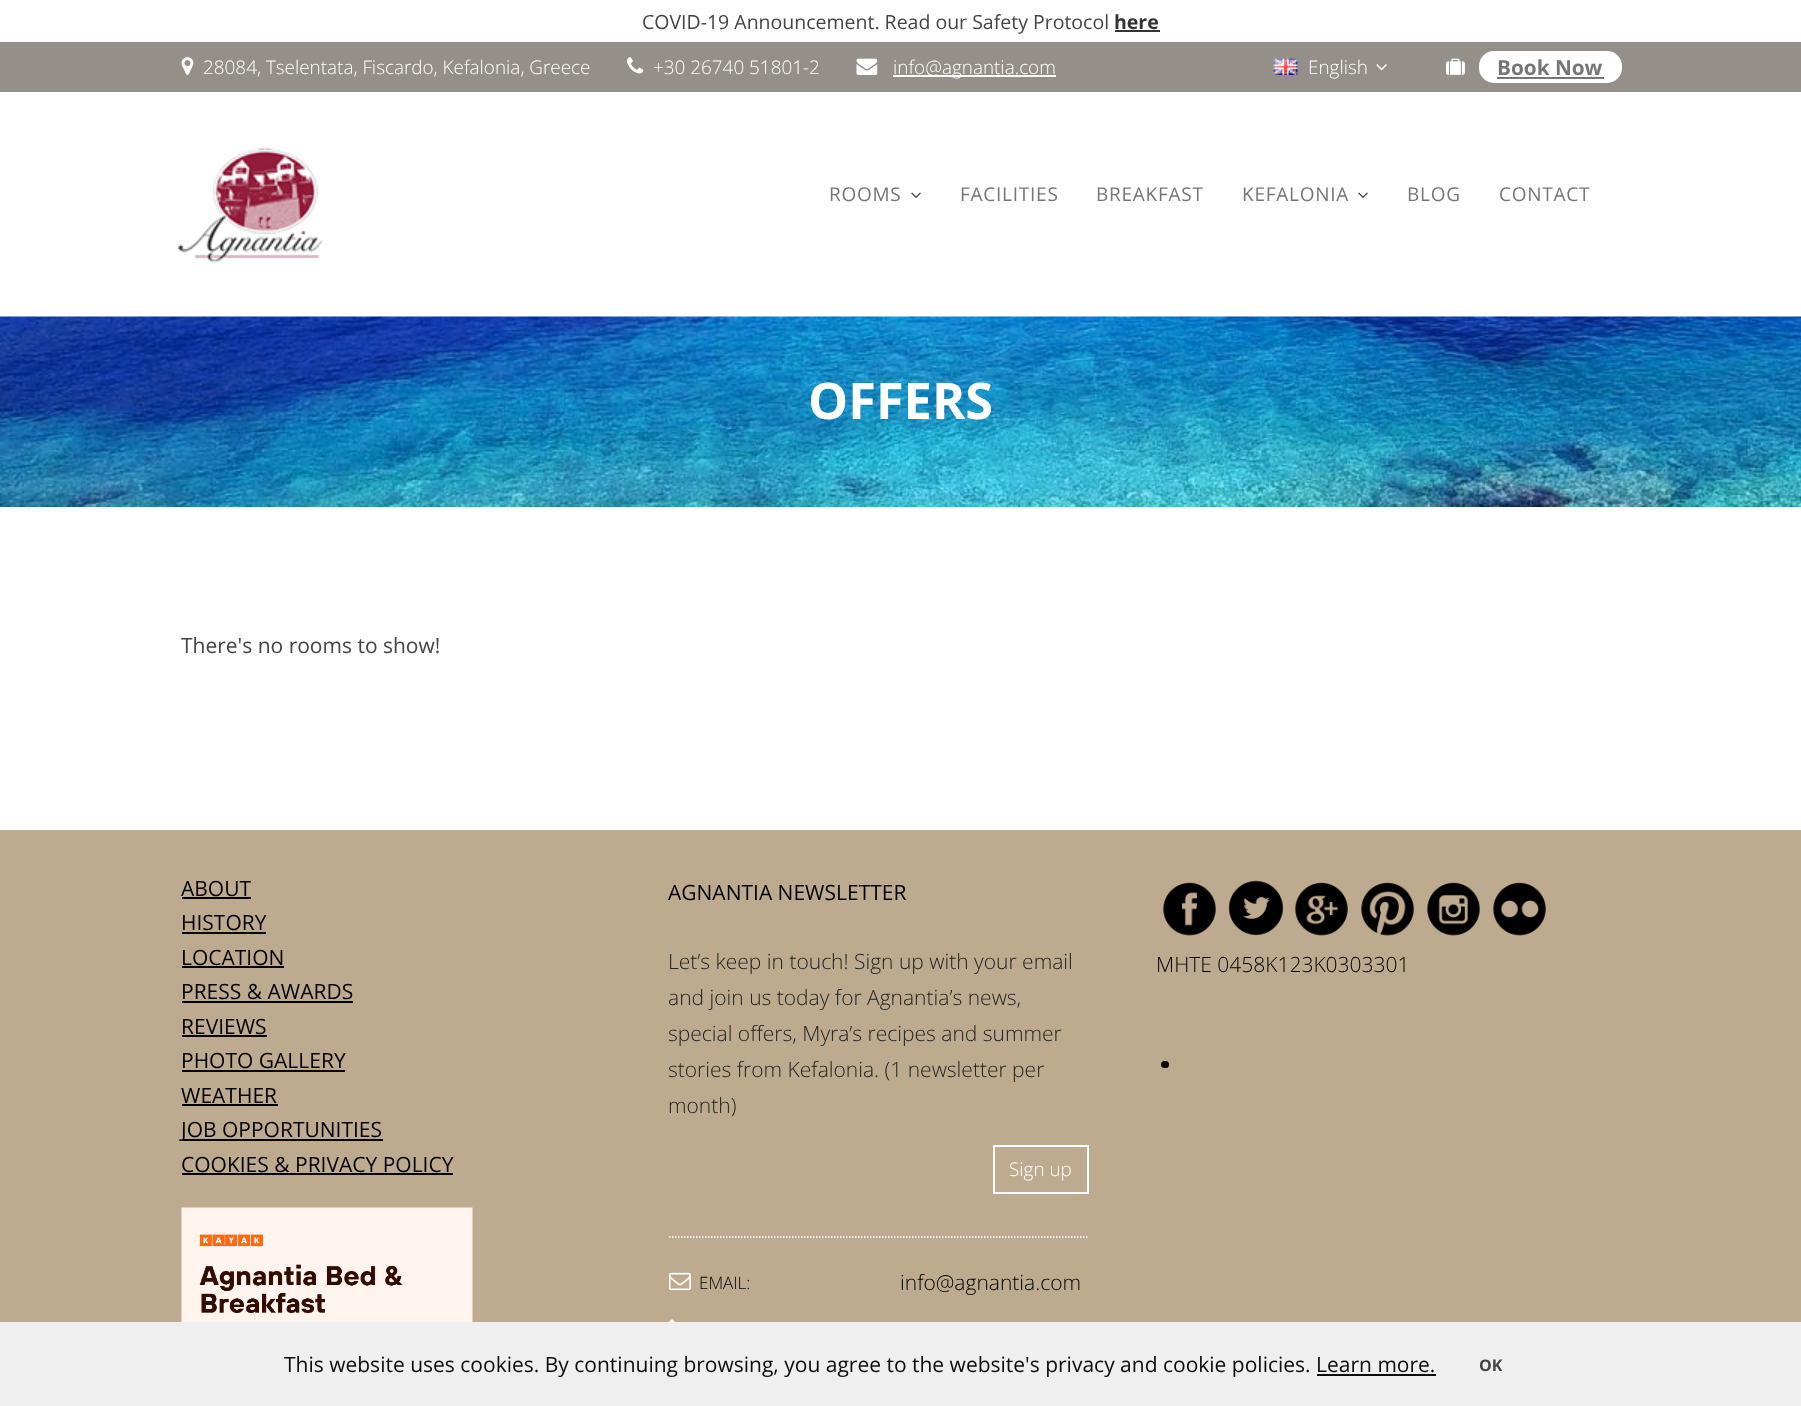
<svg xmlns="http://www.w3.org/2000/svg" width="1801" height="1406">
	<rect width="100%" height="100%" fill="#FFFFFF" />
	<text x="642" y="29" font-family="Open Sans" font-size="19.5" fill="#444444">COVID-19 Announcement. Read our Safety Protocol</text>
	<text x="1114" y="29" font-family="Open Sans" font-size="19.5" font-weight="700" fill="#333333">here</text>
	<rect x="1115" y="30" width="45" height="2" fill="#333333" />
	<rect x="0" y="42" width="1801" height="50" fill="#958F8A" />
	<image x="181" y="57" width="13" height="18" href="assets/img1.png" />
	<text x="203" y="74" font-family="Open Sans" font-size="18.9" font-weight="300" fill="#FFFFFF">28084, Tselentata, Fiscardo, Kefalonia, Greece</text>
	<image x="627" y="57" width="17" height="17" href="assets/img2.png" />
	<text x="653" y="74" font-family="Open Sans" font-size="18.9" font-weight="300" fill="#FFFFFF">+30 26740 51801-2</text>
	<image x="856" y="58" width="22" height="17" href="assets/img3.png" />
	<rect x="893" y="75" width="163" height="2" fill="#FFFFFF" />
	<text x="893" y="74" font-family="Open Sans" font-size="18.9" font-weight="300" fill="#FFFFFF">info@agnantia.com</text>
	<image x="1273" y="58" width="25" height="17" href="assets/img4.png" />
	<text x="1308" y="74" font-family="Open Sans" font-size="18.9" font-weight="300" fill="#FFFFFF">English</text>
	<image x="1376" y="64" width="11" height="7" href="assets/img5.png" />
	<image x="1446" y="58" width="19" height="17" href="assets/img6.png" />
	<rect x="1479" y="51" width="143" height="32" rx="15" fill="#FFFFFF" />
	<text x="1497" y="75" font-family="Open Sans" font-size="20.75" font-weight="700" fill="#767676">Book Now</text>
	<rect x="1497" y="77" width="107" height="2" fill="#767676" />
	<image x="178" y="148" width="145" height="115" href="assets/img7.png" />
	<text x="829" y="201" font-family="Open Sans" font-size="19" letter-spacing="0.75" fill="#767676">ROOMS</text>
	<image x="911" y="192" width="10" height="6" href="assets/img8.png" />
	<g font-family="Open Sans" font-size="19" letter-spacing="0.75" fill="#767676">
		<text x="960" y="201">FACILITIES</text>
		<text x="1096" y="201">BREAKFAST</text>
		<text x="1242" y="201">KEFALONIA</text>
	</g>
	<image x="1358" y="192" width="10" height="6" href="assets/img8.png" />
	<g font-family="Open Sans" font-size="19" letter-spacing="0.75" fill="#767676">
		<text x="1407" y="201">BLOG</text>
		<text x="1499" y="201">CONTACT</text>
	</g>
	<image x="0" y="316" width="1801" height="191" href="assets/img9.png" />
	<text x="808" y="419" font-family="Open Sans" font-size="50.5" font-weight="700" fill="#FFFFFF">OFFERS</text>
	<text x="181" y="653" font-family="Open Sans" font-size="21" fill="#444444">There's no rooms to show!</text>
	<rect x="0" y="830" width="1801" height="492" fill="#BEAB8F" />
	<text x="181" y="896" font-family="Open Sans" font-size="21" fill="#000000">ABOUT</text>
	<rect x="182" y="897" width="69" height="2" fill="#000000" />
	<text x="181" y="930" font-family="Open Sans" font-size="21" fill="#000000">HISTORY</text>
	<rect x="182" y="932" width="84" height="2" fill="#000000" />
	<text x="181" y="965" font-family="Open Sans" font-size="21" fill="#000000">LOCATION</text>
	<rect x="182" y="966" width="102" height="2" fill="#000000" />
	<text x="181" y="999" font-family="Open Sans" font-size="21" fill="#000000">PRESS &amp; AWARDS</text>
	<rect x="182" y="1001" width="171" height="2" fill="#000000" />
	<text x="181" y="1034" font-family="Open Sans" font-size="21" fill="#000000">REVIEWS</text>
	<rect x="182" y="1035" width="85" height="2" fill="#000000" />
	<text x="181" y="1068" font-family="Open Sans" font-size="21" fill="#000000">PHOTO GALLERY</text>
	<rect x="182" y="1070" width="163" height="2" fill="#000000" />
	<text x="181" y="1103" font-family="Open Sans" font-size="21" fill="#000000">WEATHER</text>
	<rect x="182" y="1104" width="96" height="2" fill="#000000" />
	<rect x="182" y="1139" width="201" height="2" fill="#000000" />
	<g font-family="Open Sans" font-size="21" fill="#000000">
		<text x="181" y="1137">JOB OPPORTUNITIES</text>
		<text x="181" y="1172">COOKIES &amp; PRIVACY POLICY</text>
	</g>
	<rect x="182" y="1173" width="271" height="2" fill="#000000" />
	<image x="181" y="1207" width="292" height="115" href="assets/img10.png" />
	<text x="668" y="900" font-family="Open Sans" font-size="21" fill="#000000">AGNANTIA NEWSLETTER</text>
	<g font-family="Open Sans" font-size="21" font-weight="300" fill="#222222">
		<text x="668" y="969">Let’s keep in touch! Sign up with your email</text>
		<text x="668" y="1005">and join us today for Agnantia’s news,</text>
		<text x="668" y="1041">special offers, Myra’s recipes and summer</text>
		<text x="668" y="1077">stories from Kefalonia. (1 newsletter per</text>
		<text x="668" y="1113">month)</text>
	</g>
	<rect x="994" y="1146" width="94" height="47" fill="none" stroke="#FFFFFF" stroke-width="2" />
	<text x="1009" y="1176" font-family="Open Sans" font-size="18.9" font-weight="300" fill="#FFFFFF">Sign up</text>
	<path d="M669 1237H1089" fill="none" stroke="#FFFFFF" stroke-width="1.5" stroke-dasharray="1.5 1.5" />
	<image x="669" y="1272" width="22" height="19" href="assets/img11.png" />
	<text x="699" y="1289" font-family="Open Sans" font-size="17" font-weight="300" fill="#000000">EMAIL:</text>
	<text x="900" y="1290" font-family="Open Sans" font-size="21" font-weight="300" fill="#000000">info@agnantia.com</text>
	<image x="669" y="1319" width="6" height="3" href="assets/img12.png" />
	<image x="1163" y="882" width="53" height="54" href="assets/img13.png" />
	<image x="1228" y="880" width="56" height="56" href="assets/img14.png" />
	<image x="1295" y="882" width="53" height="54" href="assets/img15.png" />
	<image x="1361" y="882" width="53" height="54" href="assets/img16.png" />
	<image x="1427" y="882" width="53" height="54" href="assets/img17.png" />
	<image x="1493" y="882" width="53" height="54" href="assets/img18.png" />
	<text x="1156" y="972" font-family="Open Sans" font-size="21" font-weight="300" fill="#000000">MHTE 0458Κ123Κ0303301</text>
	<rect x="1161" y="1061" width="8" height="7" rx="3.5" fill="#000000" />
	<rect x="0" y="1322" width="1801" height="84" fill="#EFEFEF" />
	<text x="284" y="1372" font-family="Open Sans" font-size="21" fill="#0C0C0C">This website uses cookies. By continuing browsing, you agree to the website's privacy and cookie policies. Learn more.</text>
	<rect x="1317" y="1374" width="119" height="2" fill="#0C0C0C" />
	<text x="1479" y="1371" font-family="Open Sans" font-size="16" font-weight="700" fill="#444444">OK</text>
</svg>
